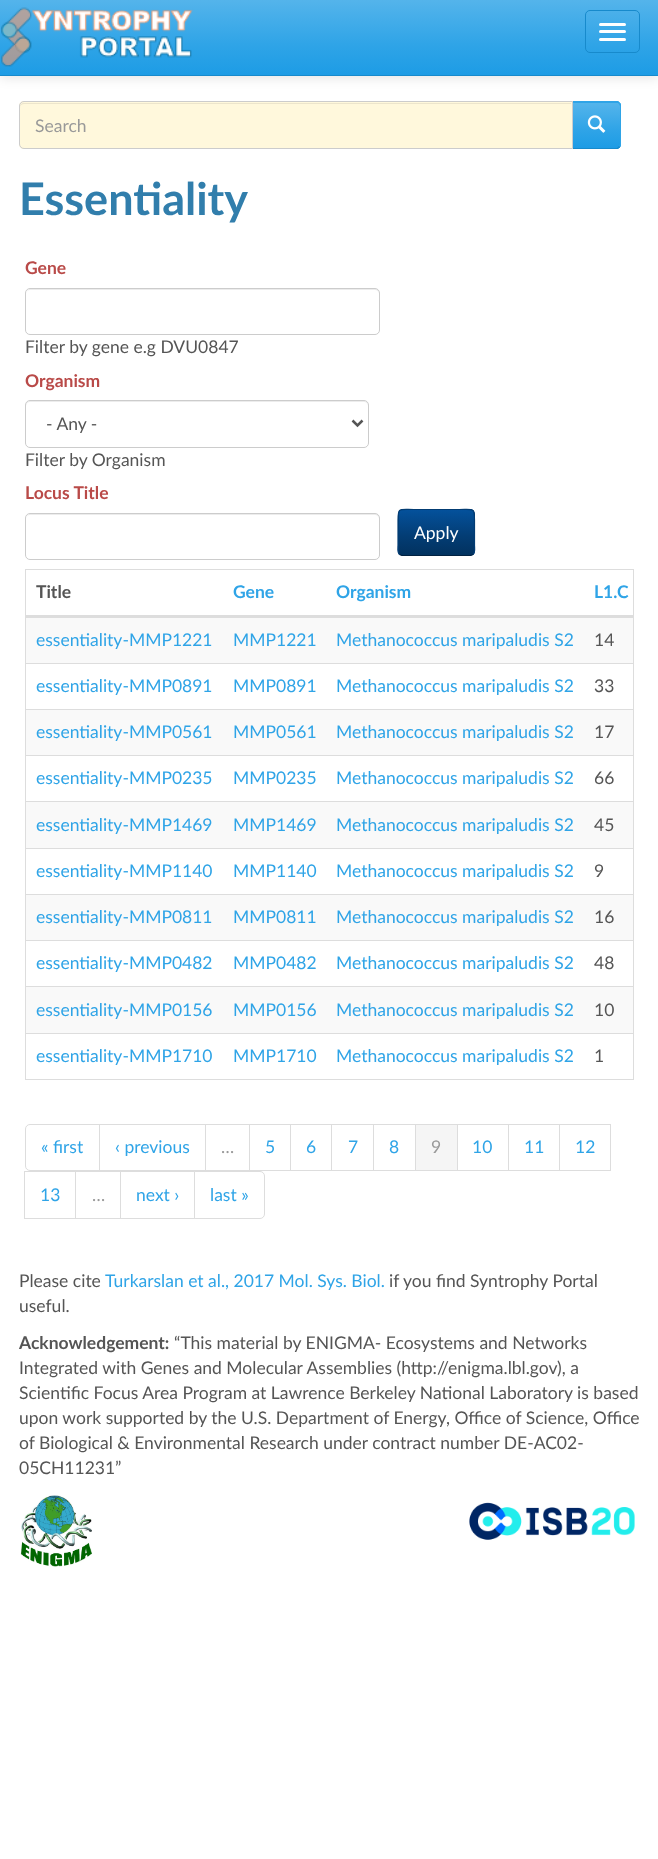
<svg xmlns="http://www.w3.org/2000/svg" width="658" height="1859">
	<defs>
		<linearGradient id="g1" gradientUnits="userSpaceOnUse" x1="329" y1="0" x2="329" y2="75"><stop offset="0" stop-color="#54B4EB" /><stop offset="0.6" stop-color="#2FA4E7" /><stop offset="1" stop-color="#1D9CE5" /></linearGradient>
		<linearGradient id="g2" gradientUnits="userSpaceOnUse" x1="596" y1="103" x2="596" y2="148"><stop offset="0" stop-color="#54B4EB" /><stop offset="0.6" stop-color="#2FA4E7" /><stop offset="1" stop-color="#1D9CE5" /></linearGradient>
		<clipPath id="clip1"><rect x="398" y="509" width="77" height="47" rx="5" /></clipPath>
		<linearGradient id="g3" gradientUnits="userSpaceOnUse" x1="436" y1="510" x2="436" y2="555"><stop offset="0" stop-color="#04519B" /><stop offset="0.6" stop-color="#033C73" /><stop offset="1" stop-color="#02325F" /></linearGradient>
	</defs>
	<rect width="100%" height="100%" fill="#FFFFFF" />
	<rect x="0" y="1" width="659" height="77" fill="#000000" fill-opacity="0.1" filter="blur(6px)" />
	<rect x="0" y="0" width="658" height="75" fill="url(#g1)" />
	<rect x="0" y="75" width="658" height="1" fill="#178ACC" />
	<image x="1" y="7" width="192" height="60" href="assets/img1.png" />
	<rect x="585.5" y="10.5" width="54" height="42" rx="4.5" fill="none" stroke="#178ACC" />
	<rect x="599" y="23" width="27" height="3" rx="1.5" fill="#FFFFFF" />
	<rect x="599" y="30" width="27" height="3" rx="1.5" fill="#FFFFFF" />
	<rect x="599" y="38" width="27" height="3" rx="1.5" fill="#FFFFFF" />
	<path d="M571 101H616C619 101 621 103 621 106V144C621 147 619 149 616 149H571Z" fill="#2FA4E7" />
	<rect x="573" y="103" width="47" height="45" fill="url(#g2)" />
	<path d="M572 102L571 101H618L620 103L619 104C618 103 617 102 616 102Z" fill="#2FA4E7" />
	<path d="M620 103C621 103 621 105 621 106V144C621 145 621 147 620 147L619 146L620 144V106L619 104Z" fill="#2FA4E7" />
	<path d="M620 147L618 149H571L572 148H617L619 146Z" fill="#178ACC" />
	<path d="M24 101H573V149H24C21 149 19 147 19 144V106C19 103 21 101 24 101Z" fill="#FFF8DC" />
	<path d="M24 104H571V103H24C21 103 20 105 20 108C20 105 22 104 24 104Z" fill="#ECE5CC" />
	<path d="M24 101.5H572.5V148.5H24C21.5 148.5 19.5 146.5 19.5 144V106C19.5 103.5 21.5 101.5 24 101.5Z" fill="none" stroke="#CCCCCC" />
	<text x="35" y="132" font-family="Lato" font-size="17.5" fill="#999999">Search</text>
	<image x="587" y="115" width="19" height="18" href="assets/img2.png" />
	<text x="19" y="215" font-family="Lato" font-size="45" font-weight="700" fill="#317EAC">Essentiality</text>
	<text x="25" y="274" font-family="Lato" font-size="17.5" font-weight="700" fill="#B94A48">Gene</text>
	<path d="M30 290H375C377 290 379 292 379 294C379 291 378 289 375 289H29L27 291L26 294C26 292 28 290 30 290Z" fill="#ECECEC" />
	<rect x="25.5" y="288.5" width="354" height="46" rx="4.5" fill="none" stroke="#CCCCCC" />
	<text x="25" y="353" font-family="Lato" font-size="17.5" fill="#555555">Filter by gene e.g DVU0847</text>
	<text x="25" y="387" font-family="Lato" font-size="17.5" font-weight="700" fill="#B94A48">Organism</text>
	<path d="M30 402H364C366 402 368 404 368 406V405C368 403 366 401 364 401H30C28 401 26 403 26 405V406C26 404 28 402 30 402Z" fill="#ECECEC" />
	<rect x="25.5" y="400.5" width="343" height="47" rx="4.5" fill="none" stroke="#CCCCCC" />
	<path d="M352.5 420.5L357.5 425.5L362.5 420.5" fill="none" stroke="#555555" stroke-width="2.5" />
	<g font-family="Lato" font-size="17.5" fill="#555555">
		<text x="46" y="430">- Any -</text>
		<text x="25" y="466">Filter by Organism</text>
	</g>
	<text x="25" y="499" font-family="Lato" font-size="17.5" font-weight="700" fill="#B94A48">Locus Title</text>
	<path d="M30 515H375C377 515 379 517 379 519C379 516 378 514 375 514H29L27 516L26 519C26 517 28 515 30 515Z" fill="#ECECEC" />
	<rect x="25.5" y="513.5" width="354" height="46" rx="4.5" fill="none" stroke="#CCCCCC" />
	<rect x="398" y="509" width="77" height="47" rx="5" fill="#033C73" />
	<g clip-path="url(#clip1)">
		<rect x="399" y="510" width="75" height="45" fill="url(#g3)" />
	</g>
	<path d="M473 554.5L470.5 555.5H402L399.5 554.5" fill="none" stroke="#022241" stroke-width="1.2" />
	<path d="M399.5 554.5C397 552 398 547.5 398 545V520C398 507 399.5 509.5 414 509.5H459C473 509.5 474.5 507 474.5 520V545C474.5 547.5 475.5 552 473 554.5" fill="none" stroke="#033C73" stroke-width="1.2" />
	<text x="414" y="539" font-family="Lato" font-size="17.5" fill="#FFFFFF">Apply</text>
	<rect x="25.5" y="569.5" width="608" height="510" fill="none" stroke="#DDDDDD" />
	<text x="36" y="598" font-family="Lato" font-size="17.5" font-weight="700" fill="#555555">Title</text>
	<g font-family="Lato" font-size="17.5" font-weight="700" fill="#2FA4E7">
		<text x="233" y="598">Gene</text>
		<text x="336" y="598">Organism</text>
	</g>
	<rect x="26" y="615" width="607" height="3" fill="#DDDDDD" />
	<text x="594" y="598" font-family="Lato" font-size="17.5" font-weight="700" fill="#2FA4E7">L1.C</text>
	<rect x="26" y="618" width="607" height="45" fill="#F9F9F9" />
	<g font-family="Lato" font-size="17.5" fill="#2FA4E7">
		<text x="36" y="646">essentiality-MMP1221</text>
		<text x="233" y="646">MMP1221</text>
		<text x="336" y="646">Methanococcus maripaludis S2</text>
	</g>
	<text x="594" y="646" font-family="Lato" font-size="17.5" fill="#555555">14</text>
	<g font-family="Lato" font-size="17.5" fill="#2FA4E7">
		<text x="36" y="692">essentiality-MMP0891</text>
		<text x="233" y="692">MMP0891</text>
		<text x="336" y="692">Methanococcus maripaludis S2</text>
	</g>
	<rect x="26" y="663" width="607" height="1" fill="#DDDDDD" />
	<text x="594" y="692" font-family="Lato" font-size="17.5" fill="#555555">33</text>
	<rect x="26" y="710" width="607" height="45" fill="#F9F9F9" />
	<g font-family="Lato" font-size="17.5" fill="#2FA4E7">
		<text x="36" y="738">essentiality-MMP0561</text>
		<text x="233" y="738">MMP0561</text>
		<text x="336" y="738">Methanococcus maripaludis S2</text>
	</g>
	<rect x="26" y="709" width="607" height="1" fill="#DDDDDD" />
	<text x="594" y="738" font-family="Lato" font-size="17.5" fill="#555555">17</text>
	<g font-family="Lato" font-size="17.5" fill="#2FA4E7">
		<text x="36" y="784">essentiality-MMP0235</text>
		<text x="233" y="784">MMP0235</text>
		<text x="336" y="784">Methanococcus maripaludis S2</text>
	</g>
	<rect x="26" y="755" width="607" height="1" fill="#DDDDDD" />
	<text x="594" y="784" font-family="Lato" font-size="17.5" fill="#555555">66</text>
	<rect x="26" y="802" width="607" height="46" fill="#F9F9F9" />
	<g font-family="Lato" font-size="17.5" fill="#2FA4E7">
		<text x="36" y="831">essentiality-MMP1469</text>
		<text x="233" y="831">MMP1469</text>
		<text x="336" y="831">Methanococcus maripaludis S2</text>
	</g>
	<rect x="26" y="801" width="607" height="1" fill="#DDDDDD" />
	<text x="594" y="831" font-family="Lato" font-size="17.5" fill="#555555">45</text>
	<g font-family="Lato" font-size="17.5" fill="#2FA4E7">
		<text x="36" y="877">essentiality-MMP1140</text>
		<text x="233" y="877">MMP1140</text>
		<text x="336" y="877">Methanococcus maripaludis S2</text>
	</g>
	<rect x="26" y="848" width="607" height="1" fill="#DDDDDD" />
	<text x="594" y="877" font-family="Lato" font-size="17.5" fill="#555555">9</text>
	<rect x="26" y="895" width="607" height="45" fill="#F9F9F9" />
	<g font-family="Lato" font-size="17.5" fill="#2FA4E7">
		<text x="36" y="923">essentiality-MMP0811</text>
		<text x="233" y="923">MMP0811</text>
		<text x="336" y="923">Methanococcus maripaludis S2</text>
	</g>
	<rect x="26" y="894" width="607" height="1" fill="#DDDDDD" />
	<text x="594" y="923" font-family="Lato" font-size="17.5" fill="#555555">16</text>
	<g font-family="Lato" font-size="17.5" fill="#2FA4E7">
		<text x="36" y="969">essentiality-MMP0482</text>
		<text x="233" y="969">MMP0482</text>
		<text x="336" y="969">Methanococcus maripaludis S2</text>
	</g>
	<rect x="26" y="940" width="607" height="1" fill="#DDDDDD" />
	<text x="594" y="969" font-family="Lato" font-size="17.5" fill="#555555">48</text>
	<rect x="26" y="987" width="607" height="46" fill="#F9F9F9" />
	<g font-family="Lato" font-size="17.5" fill="#2FA4E7">
		<text x="36" y="1016">essentiality-MMP0156</text>
		<text x="233" y="1016">MMP0156</text>
		<text x="336" y="1016">Methanococcus maripaludis S2</text>
	</g>
	<rect x="26" y="986" width="607" height="1" fill="#DDDDDD" />
	<text x="594" y="1016" font-family="Lato" font-size="17.5" fill="#555555">10</text>
	<g font-family="Lato" font-size="17.5" fill="#2FA4E7">
		<text x="36" y="1062">essentiality-MMP1710</text>
		<text x="233" y="1062">MMP1710</text>
		<text x="336" y="1062">Methanococcus maripaludis S2</text>
	</g>
	<rect x="26" y="1033" width="607" height="1" fill="#DDDDDD" />
	<text x="594" y="1062" font-family="Lato" font-size="17.5" fill="#555555">1</text>
	<path d="M30 1124.5H99.5V1170.5H30C27.5 1170.5 25.5 1168.5 25.5 1166V1129C25.5 1126.5 27.5 1124.5 30 1124.5Z" fill="none" stroke="#DDDDDD" />
	<text x="41" y="1153" font-family="Lato" font-size="17.5" fill="#2FA4E7">« first</text>
	<rect x="99.5" y="1124.5" width="106" height="46" fill="none" stroke="#DDDDDD" />
	<text x="115" y="1153" font-family="Lato" font-size="17.5" fill="#2FA4E7">‹ previous</text>
	<rect x="205.5" y="1124.5" width="44" height="46" fill="none" stroke="#DDDDDD" />
	<text x="221" y="1153" font-family="Lato" font-size="17.5" fill="#999999">…</text>
	<rect x="249.5" y="1124.5" width="41" height="46" fill="none" stroke="#DDDDDD" />
	<text x="265" y="1153" font-family="Lato" font-size="17.5" fill="#2FA4E7">5</text>
	<rect x="290.5" y="1124.5" width="42" height="46" fill="none" stroke="#DDDDDD" />
	<text x="306" y="1153" font-family="Lato" font-size="17.5" fill="#2FA4E7">6</text>
	<rect x="332" y="1125" width="1" height="45" fill="#FFFFFF" />
	<rect x="331.5" y="1124.5" width="42" height="46" fill="none" stroke="#DDDDDD" />
	<text x="348" y="1153" font-family="Lato" font-size="17.5" fill="#2FA4E7">7</text>
	<rect x="373.5" y="1124.5" width="42" height="46" fill="none" stroke="#DDDDDD" />
	<text x="389" y="1153" font-family="Lato" font-size="17.5" fill="#2FA4E7">8</text>
	<rect x="456.5" y="1124.5" width="52" height="46" fill="none" stroke="#DDDDDD" />
	<rect x="415.5" y="1124.5" width="42" height="46" fill="#F5F5F5" stroke="#DDDDDD" />
	<text x="431" y="1153" font-family="Lato" font-size="17.5" fill="#999999">9</text>
	<text x="472" y="1153" font-family="Lato" font-size="17.5" fill="#2FA4E7">10</text>
	<rect x="508.5" y="1124.5" width="51" height="46" fill="none" stroke="#DDDDDD" />
	<text x="524" y="1153" font-family="Lato" font-size="17.5" fill="#2FA4E7">11</text>
	<rect x="559.5" y="1124.5" width="51" height="46" fill="none" stroke="#DDDDDD" />
	<text x="575" y="1153" font-family="Lato" font-size="17.5" fill="#2FA4E7">12</text>
	<rect x="24.5" y="1171.5" width="51" height="47" fill="none" stroke="#DDDDDD" />
	<text x="40" y="1201" font-family="Lato" font-size="17.5" fill="#2FA4E7">13</text>
	<rect x="75.5" y="1171.5" width="45" height="47" fill="none" stroke="#DDDDDD" />
	<text x="92" y="1201" font-family="Lato" font-size="17.5" fill="#999999">…</text>
	<rect x="120.5" y="1171.5" width="74" height="47" fill="none" stroke="#DDDDDD" />
	<text x="136" y="1201" font-family="Lato" font-size="17.5" fill="#2FA4E7">next ›</text>
	<path d="M194.5 1171.5H260C262.5 1171.5 264.5 1173.5 264.5 1176V1214C264.5 1216.5 262.5 1218.5 260 1218.5H194.5Z" fill="#FFFFFF" stroke="#DDDDDD" />
	<text x="210" y="1201" font-family="Lato" font-size="17.5" fill="#2FA4E7">last »</text>
	<text x="19" y="1287" font-family="Lato" font-size="17.5" fill="#555555">Please cite</text>
	<text x="105" y="1287" font-family="Lato" font-size="17.5" fill="#2FA4E7">Turkarslan et al., 2017 Mol. Sys. Biol.</text>
	<g font-family="Lato" font-size="17.5" fill="#555555">
		<text x="389" y="1287">if you find Syntrophy Portal</text>
		<text x="19" y="1312">useful.</text>
	</g>
	<text x="19" y="1349" font-family="Lato" font-size="17.5" font-weight="700" fill="#555555">Acknowledgement:</text>
	<g font-family="Lato" font-size="17.5" fill="#555555">
		<text x="174" y="1349">“This material by ENIGMA- Ecosystems and Networks</text>
		<text x="19" y="1374">Integrated with Genes and Molecular Assemblies (http://enigma.lbl.gov), a</text>
		<text x="19" y="1399">Scientific Focus Area Program at Lawrence Berkeley National Laboratory is based</text>
		<text x="19" y="1424">upon work supported by the U.S. Department of Energy, Office of Science, Office</text>
		<text x="19" y="1449">of Biological &amp; Environmental Research under contract number DE-AC02-</text>
		<text x="19" y="1474">05CH11231”</text>
	</g>
	<image x="20" y="1495" width="72" height="72" href="assets/img3.png" />
	<image x="469" y="1502" width="166" height="38" href="assets/img4.png" />
</svg>
